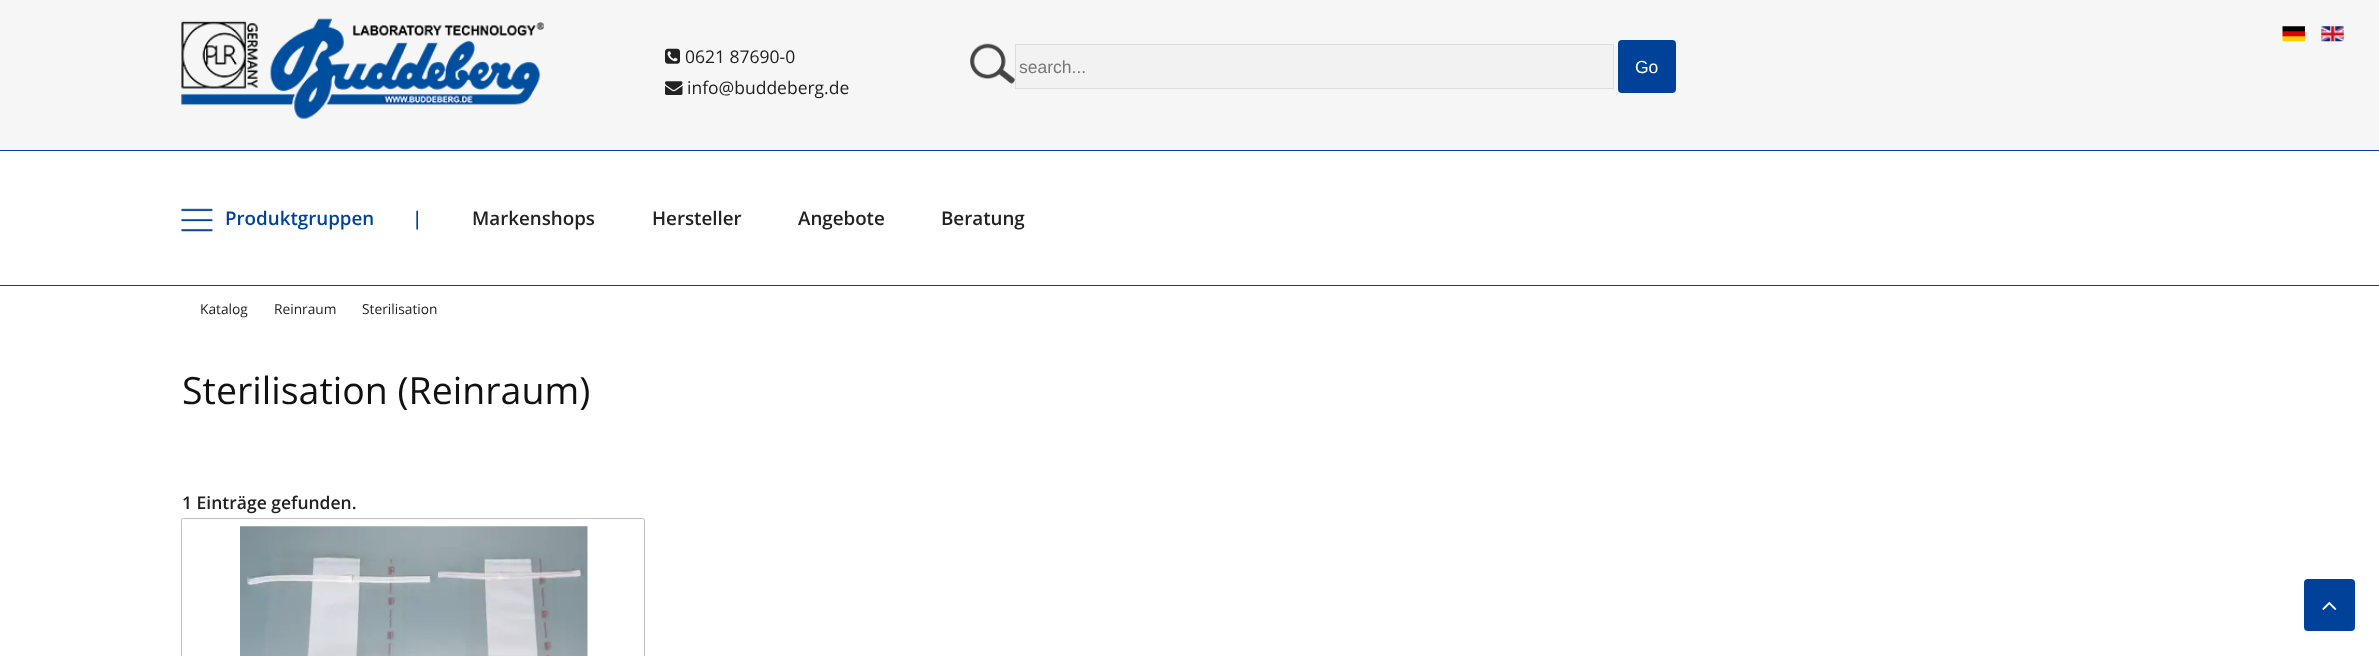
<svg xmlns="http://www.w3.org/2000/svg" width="2379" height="656">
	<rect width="100%" height="100%" fill="#FFFFFF" />
	<rect x="0" y="0" width="2379" height="150" fill="#F6F6F6" />
	<image x="181" y="18" width="363" height="101" href="assets/img1.png" />
	<image x="2282" y="26" width="23" height="16" href="assets/img2.png" />
	<image x="2321" y="26" width="23" height="16" href="assets/img3.png" />
	<image x="665" y="48" width="15" height="16" href="assets/img4.png" />
	<text x="685" y="63" font-family="Open Sans" font-size="17.5" fill="#222222">0621 87690-0</text>
	<image x="665" y="81" width="18" height="14" href="assets/img5.png" />
	<text x="687" y="94" font-family="Open Sans" font-size="17.5" fill="#222222">info@buddeberg.de</text>
	<image x="970" y="43" width="45" height="41" href="assets/img6.png" />
	<rect x="1015.5" y="44.5" width="598" height="44" fill="#F2F2F2" stroke="#DDDDDD" />
	<text x="1019" y="73" font-family="Liberation Sans" font-size="17.5" fill="#777777">search...</text>
	<rect x="1618" y="40" width="58" height="53" rx="4" fill="#004299" />
	<text x="1635" y="73" font-family="Liberation Sans" font-size="17.5" fill="#FFFFFF">Go</text>
	<rect x="0" y="150" width="2379" height="1" fill="#004299" />
	<image x="181" y="208" width="32" height="24" href="assets/img7.png" />
	<g font-family="Open Sans" font-size="18.75" font-weight="600" fill="#004299">
		<text x="225" y="225">Produktgruppen</text>
		<text x="412" y="225">|</text>
	</g>
	<g font-family="Open Sans" font-size="18.75" font-weight="600" fill="#222222">
		<text x="472" y="225">Markenshops</text>
		<text x="652" y="225">Hersteller</text>
		<text x="798" y="225">Angebote</text>
		<text x="941" y="225">Beratung</text>
	</g>
	<rect x="0" y="285" width="2379" height="1" fill="#004299" />
	<g font-family="Open Sans" font-size="13.75" fill="#222222">
		<text x="200" y="314">Katalog</text>
		<text x="274" y="314">Reinraum</text>
		<text x="362" y="314">Sterilisation</text>
	</g>
	<text x="182" y="404" font-family="Open Sans" font-size="37.5" fill="#111111">Sterilisation (Reinraum)</text>
	<text x="182" y="509" font-family="Open Sans" font-size="17.5" font-weight="600" fill="#222222">1 Einträge gefunden.</text>
	<rect x="181.5" y="518.5" width="463" height="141" rx="2" fill="none" stroke="#BEBEBE" />
	<image x="240" y="526" width="348" height="130" href="assets/img8.png" />
	<rect x="2304" y="579" width="51" height="52" rx="4" fill="#004299" />
	<image x="2322" y="601" width="15" height="9" href="assets/img9.png" />
</svg>
